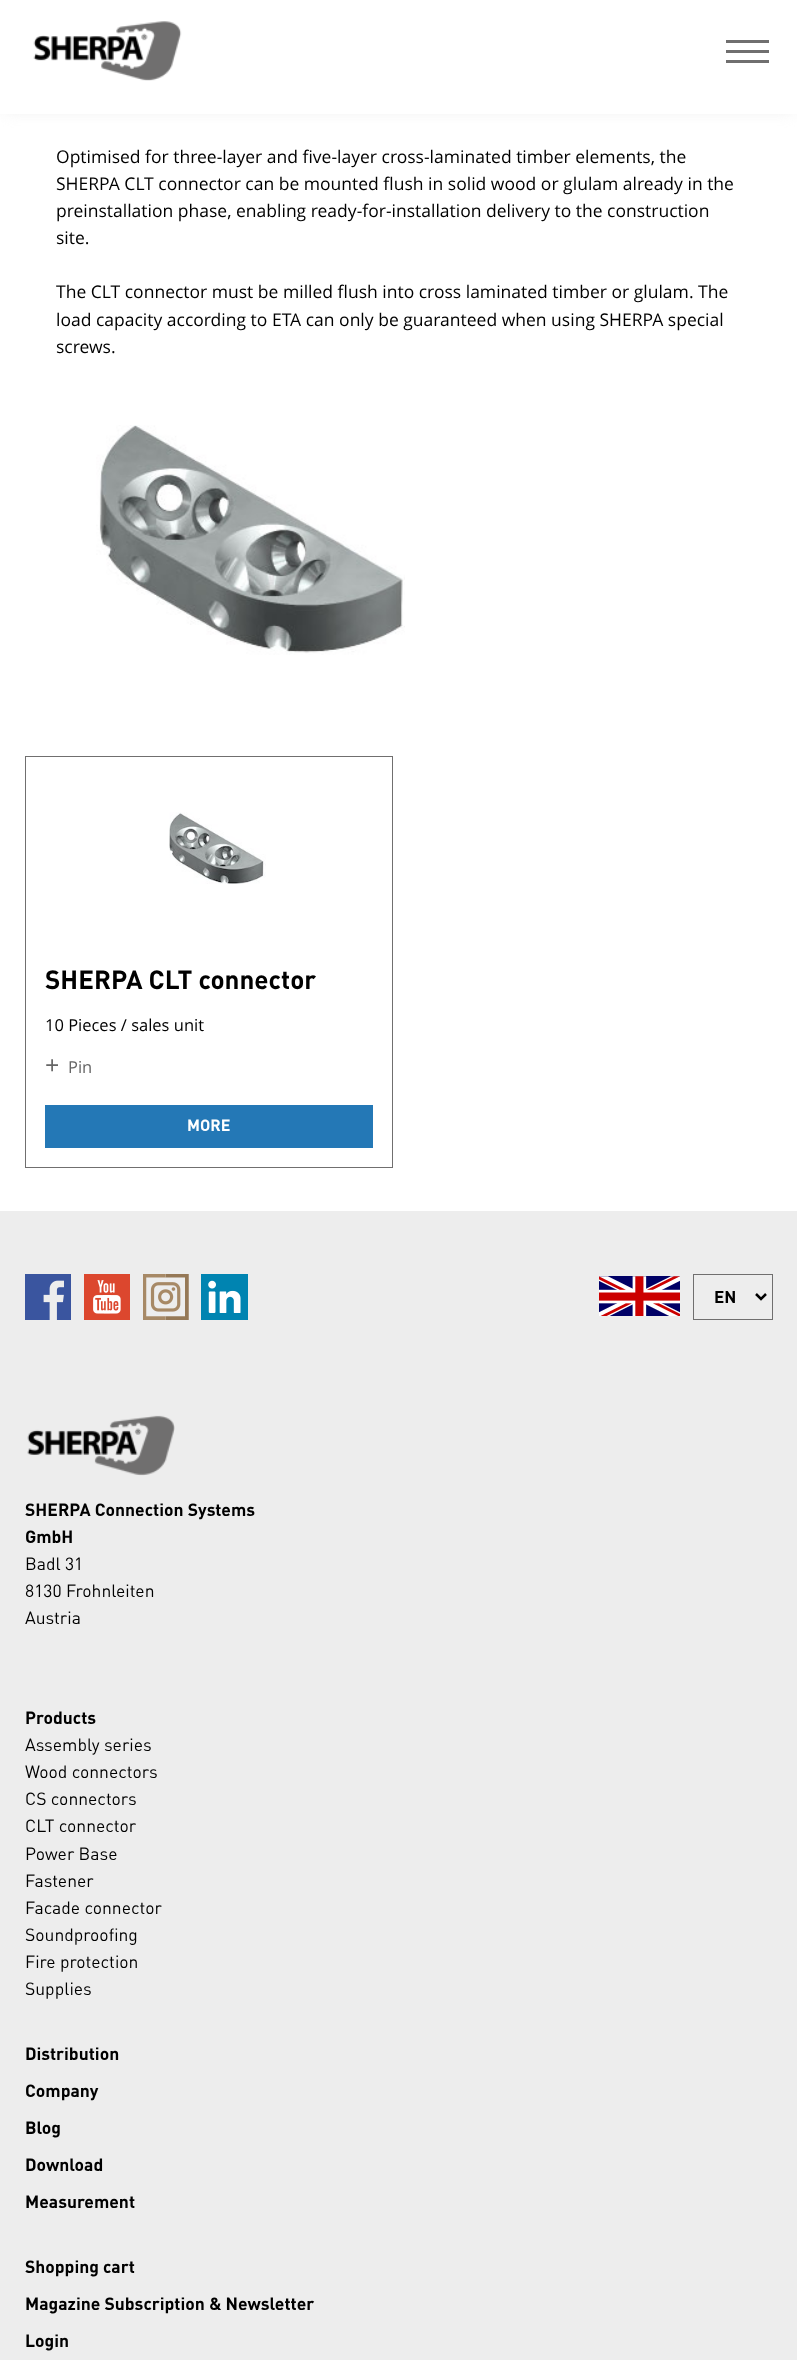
<svg xmlns="http://www.w3.org/2000/svg" width="797" height="2360">
	<rect width="100%" height="100%" fill="#FFFFFF" />
	<rect x="3" y="3" width="792" height="108" fill="#EDEDED" filter="blur(7.5px)" />
	<rect x="0" y="0" width="797" height="114" fill="#FFFFFF" />
	<image x="33" y="21" width="149" height="60" href="assets/img1.png" />
	<rect x="726" y="40" width="43" height="3" fill="#706F6F" />
	<rect x="726" y="50" width="43" height="3" fill="#706F6F" />
	<rect x="726" y="60" width="43" height="3" fill="#706F6F" />
	<g font-family="Open Sans" font-size="17.5" fill="#000000">
		<text x="56" y="163">Optimised for three-layer and five-layer cross-laminated timber elements, the</text>
		<text x="56" y="190">SHERPA CLT connector can be mounted flush in solid wood or glulam already in the</text>
		<text x="56" y="217">preinstallation phase, enabling ready-for-installation delivery to the construction</text>
		<text x="56" y="244">site.</text>
		<text x="56" y="298">The CLT connector must be milled flush into cross laminated timber or glulam. The</text>
		<text x="56" y="326">load capacity according to ETA can only be guaranteed when using SHERPA special</text>
		<text x="56" y="353">screws.</text>
	</g>
	<image x="96" y="425" width="309" height="230" href="assets/img2.png" />
	<rect x="25.5" y="756.5" width="367" height="411" fill="none" stroke="#706F6F" />
	<image x="169" y="812" width="97" height="72" href="assets/img3.png" />
	<text x="45" y="989" font-family="DIN" font-size="26" font-weight="700" fill="#000000">SHERPA CLT connector</text>
	<text x="45" y="1031" font-family="Open Sans" font-size="16.5" fill="#000000">10 Pieces / sales unit</text>
	<text x="45" y="1074" font-family="Open Sans" font-size="25" fill="#666666">+</text>
	<text x="68" y="1073" font-family="Open Sans" font-size="16.5" fill="#666666">Pin</text>
	<rect x="45" y="1105" width="328" height="43" fill="#2478B6" />
	<text x="187" y="1131" font-family="DIN" font-size="16" font-weight="700" fill="#FFFFFF">MORE</text>
	<rect x="0" y="1211" width="797" height="1149" fill="#EDEDED" />
	<image x="25" y="1274" width="46" height="46" href="assets/img4.png" />
	<image x="84" y="1274" width="46" height="46" href="assets/img5.png" />
	<image x="143" y="1274" width="46" height="46" href="assets/img6.png" />
	<image x="201" y="1274" width="47" height="46" href="assets/img7.png" />
	<image x="599" y="1276" width="81" height="40" href="assets/img8.png" />
	<rect x="693.5" y="1274.5" width="79" height="45" fill="none" stroke="#706F6F" />
	<path d="M756 1294L761 1299L766 1294" fill="none" stroke="#000000" stroke-width="2.5" />
	<text x="714" y="1303" font-family="DIN" font-size="17" font-weight="700" fill="#000000">EN</text>
	<image x="27" y="1415" width="148" height="61" href="assets/img9.png" />
	<g font-family="DIN" font-size="17.5" font-weight="700" fill="#000000">
		<text x="25" y="1516">SHERPA Connection Systems</text>
		<text x="25" y="1543">GmbH</text>
	</g>
	<g font-family="DIN" font-size="17.5" fill="#000000">
		<text x="25" y="1570">Badl 31</text>
		<text x="25" y="1597">8130 Frohnleiten</text>
		<text x="25" y="1624">Austria</text>
	</g>
	<text x="25" y="1724" font-family="DIN" font-size="17.5" font-weight="700" fill="#000000">Products</text>
	<g font-family="DIN" font-size="17.5" fill="#000000">
		<text x="25" y="1751">Assembly series</text>
		<text x="25" y="1778">Wood connectors</text>
		<text x="25" y="1805">CS connectors</text>
		<text x="25" y="1832">CLT connector</text>
		<text x="25" y="1860">Power Base</text>
		<text x="25" y="1887">Fastener</text>
		<text x="25" y="1914">Facade connector</text>
		<text x="25" y="1941">Soundproofing</text>
		<text x="25" y="1968">Fire protection</text>
		<text x="25" y="1995">Supplies</text>
	</g>
	<g font-family="DIN" font-size="17.5" font-weight="700" fill="#000000">
		<text x="25" y="2060">Distribution</text>
		<text x="25" y="2097">Company</text>
		<text x="25" y="2134">Blog</text>
		<text x="25" y="2171">Download</text>
		<text x="25" y="2208">Measurement</text>
		<text x="25" y="2273">Shopping cart</text>
		<text x="25" y="2310">Magazine Subscription &amp; Newsletter</text>
		<text x="25" y="2347">Login</text>
	</g>
</svg>
